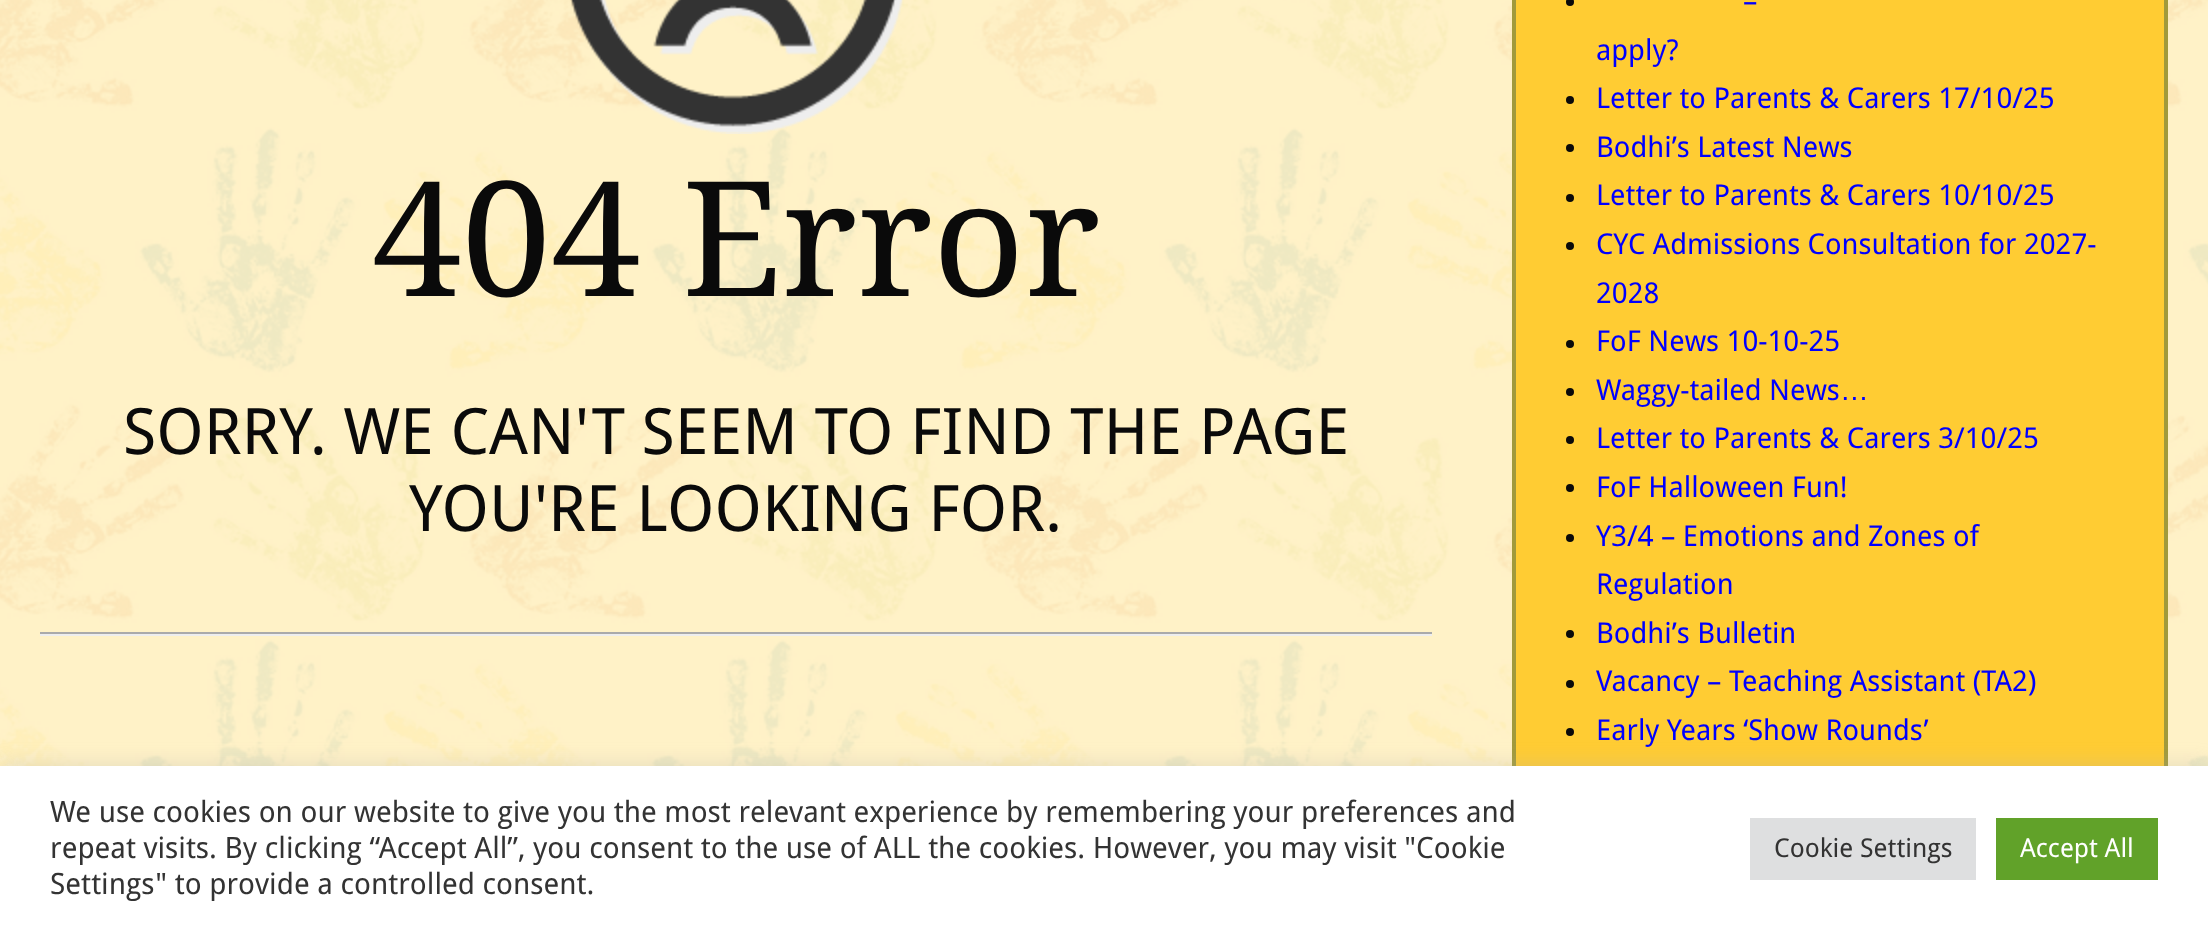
<svg xmlns="http://www.w3.org/2000/svg" width="2208" height="929">
	<rect width="100%" height="100%" fill="#FFFFFF" />
	<image x="0" y="0" width="2208" height="766" href="assets/img1.png" />
	<rect x="40" y="634" width="1392" height="2" fill="#EEEEEE" />
	<rect x="40" y="632" width="1392" height="2" fill="#AAAAAA" />
	<image x="570" y="0" width="333" height="134" href="assets/img2.png" />
	<text x="372" y="296" font-family="Droid Serif" font-size="160" fill="#0A0A0A">404 Error</text>
	<g font-family="Droid Sans" font-size="64" fill="#0A0A0A">
		<text x="123" y="454">SORRY. WE CAN'T SEEM TO FIND THE PAGE</text>
		<text x="409" y="531">YOU'RE LOOKING FOR.</text>
	</g>
	<rect x="1516" y="0" width="648" height="766" fill="#FFCC33" />
	<rect x="1514" y="-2" width="652" height="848" fill="none" stroke="#A19A3B" stroke-width="4" />
	<circle cx="1570" cy="2" r="4" fill="#0A0A0A" />
	<g font-family="Droid Sans" font-size="28.75" fill="#0000FF">
		<text x="1743" y="11">–</text>
		<text x="1596" y="60">apply?</text>
	</g>
	<circle cx="1570" cy="100" r="4" fill="#0A0A0A" />
	<text x="1596" y="108" font-family="Droid Sans" font-size="28.75" fill="#0000FF">Letter to Parents &amp; Carers 17/10/25</text>
	<circle cx="1570" cy="148" r="4" fill="#0A0A0A" />
	<text x="1596" y="157" font-family="Droid Sans" font-size="28.75" fill="#0000FF">Bodhi’s Latest News</text>
	<circle cx="1570" cy="198" r="4" fill="#0A0A0A" />
	<text x="1596" y="205" font-family="Droid Sans" font-size="28.75" fill="#0000FF">Letter to Parents &amp; Carers 10/10/25</text>
	<circle cx="1570" cy="246" r="4" fill="#0A0A0A" />
	<g font-family="Droid Sans" font-size="28.75" fill="#0000FF">
		<text x="1596" y="254">CYC Admissions Consultation for 2027-</text>
		<text x="1596" y="303">2028</text>
	</g>
	<circle cx="1570" cy="344" r="4" fill="#0A0A0A" />
	<text x="1596" y="351" font-family="Droid Sans" font-size="28.75" fill="#0000FF">FoF News 10-10-25</text>
	<circle cx="1570" cy="392" r="4" fill="#0A0A0A" />
	<text x="1596" y="400" font-family="Droid Sans" font-size="28.75" fill="#0000FF">Waggy-tailed News</text>
	<text x="1840" y="400" font-family="Liberation Sans" font-size="28.75" fill="#0000FF">…</text>
	<circle cx="1570" cy="440" r="4" fill="#0A0A0A" />
	<text x="1596" y="448" font-family="Droid Sans" font-size="28.75" fill="#0000FF">Letter to Parents &amp; Carers 3/10/25</text>
	<circle cx="1570" cy="488" r="4" fill="#0A0A0A" />
	<text x="1596" y="497" font-family="Droid Sans" font-size="28.75" fill="#0000FF">FoF Halloween Fun!</text>
	<circle cx="1570" cy="538" r="4" fill="#0A0A0A" />
	<g font-family="Droid Sans" font-size="28.75" fill="#0000FF">
		<text x="1596" y="546">Y3/4 – Emotions and Zones of</text>
		<text x="1596" y="594">Regulation</text>
	</g>
	<circle cx="1570" cy="634" r="4" fill="#0A0A0A" />
	<text x="1596" y="643" font-family="Droid Sans" font-size="28.75" fill="#0000FF">Bodhi’s Bulletin</text>
	<circle cx="1570" cy="684" r="4" fill="#0A0A0A" />
	<text x="1596" y="691" font-family="Droid Sans" font-size="28.75" fill="#0000FF">Vacancy – Teaching Assistant (TA2)</text>
	<circle cx="1570" cy="732" r="4" fill="#0A0A0A" />
	<text x="1596" y="740" font-family="Droid Sans" font-size="28.75" fill="#0000FF">Early Years ‘Show Rounds’</text>
	<rect x="0" y="764" width="2208" height="164" fill="#ACABAB" fill-opacity="0.3" filter="blur(10px)" />
	<rect x="0" y="766" width="2208" height="163" fill="#FFFFFF" />
	<g font-family="Droid Sans" font-size="29.35" fill="#333333">
		<text x="50" y="822">We use cookies on our website to give you the most relevant experience by remembering your preferences and</text>
		<text x="50" y="858">repeat visits. By clicking “Accept All”, you consent to the use of ALL the cookies. However, you may visit "Cookie</text>
		<text x="50" y="894">Settings" to provide a controlled consent.</text>
	</g>
	<rect x="1750" y="818" width="226" height="62" fill="#DEDFE0" />
	<text x="1774" y="857" font-family="Droid Sans" font-size="26" fill="#333333">Cookie Settings</text>
	<rect x="1996" y="818" width="162" height="62" fill="#61A229" />
	<text x="2020" y="857" font-family="Droid Sans" font-size="26" fill="#FFFFFF">Accept All</text>
</svg>
